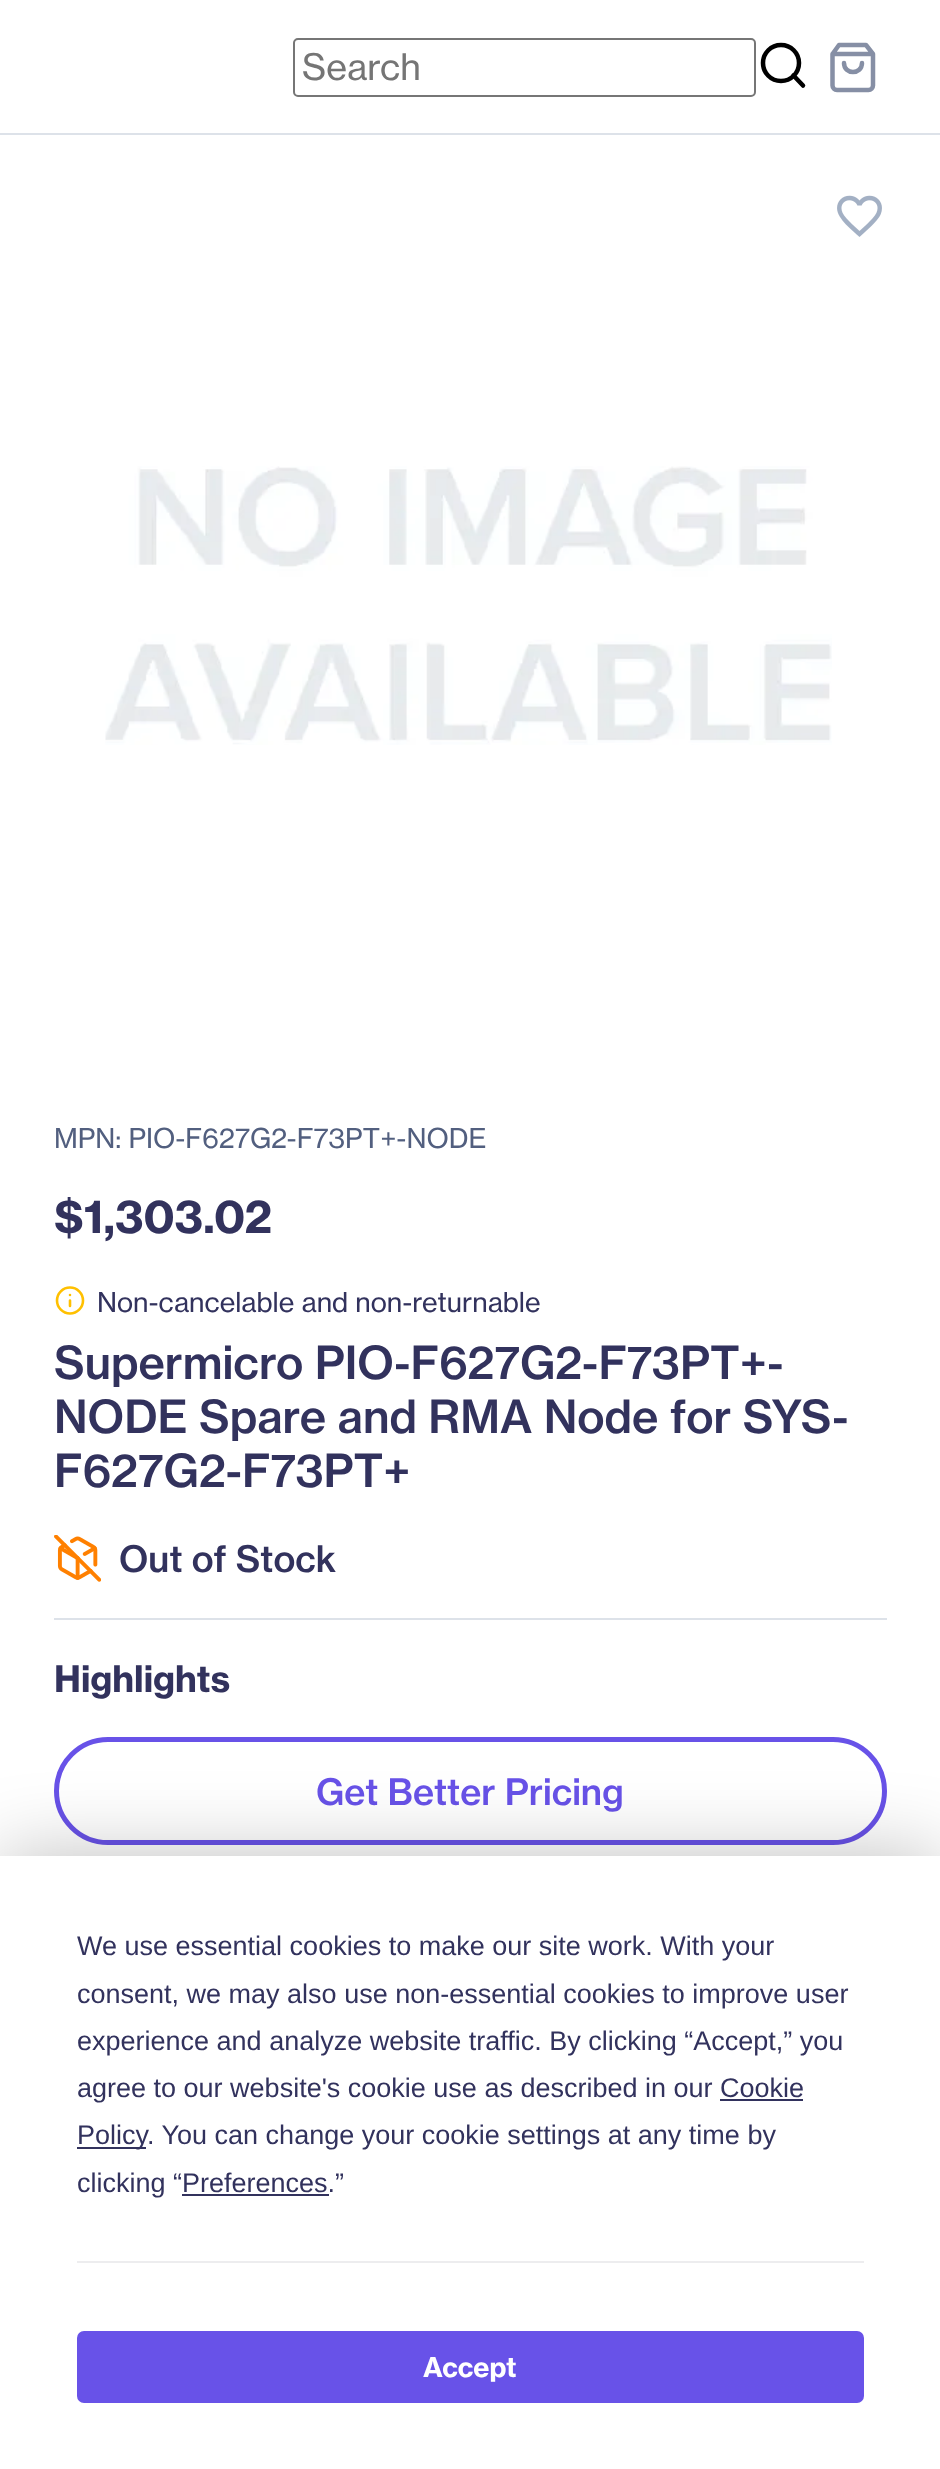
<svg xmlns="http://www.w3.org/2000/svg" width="940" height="2469">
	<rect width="100%" height="100%" fill="#FFFFFF" />
	<rect x="0" y="133" width="940" height="2" fill="#DDE2E9" />
	<rect x="294" y="39" width="461" height="57" rx="4" fill="none" stroke="#767676" stroke-width="2" />
	<text x="302" y="80" font-family="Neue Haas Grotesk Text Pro" font-size="36" fill="#757575">Search</text>
	<circle cx="781" cy="63" r="18" fill="none" stroke="#000000" stroke-width="4.5" />
	<path d="M803 85.5L793.5 75.5" fill="none" stroke="#000000" stroke-width="4.5" stroke-linecap="round" stroke-linejoin="round" />
	<path d="M839 45L832.5 54V85.5C832.5 88 834.5 90 837 90H868.5C871 90 873 88 873 85.5V54L866 45ZM832.5 54H873M862 63C862 75 844 75 844 63" fill="none" stroke="#868FA5" stroke-width="4.5" stroke-linecap="round" stroke-linejoin="round" />
	<image x="837" y="195" width="45" height="42" href="assets/img1.png" />
	<image x="105" y="466" width="727" height="279" href="assets/img2.png" />
	<text x="54" y="1148" font-family="Neue Haas Grotesk Text Pro" font-size="27" fill="#525F7F">MPN: PIO-F627G2-F73PT+-NODE</text>
	<text x="54" y="1233" font-family="Neue Haas Grotesk Text Pro" font-size="45" font-weight="700" fill="#32325D">$1,303.02</text>
	<circle cx="70" cy="1300.5" r="13" fill="none" stroke="#FFC000" stroke-width="2.6" />
	<path d="M70 1306V1300.5M70 1295H70" fill="none" stroke="#FFC000" stroke-width="2.6" stroke-linecap="round" stroke-linejoin="round" />
	<text x="97" y="1312" font-family="Neue Haas Grotesk Text Pro" font-size="27" fill="#32325D">Non-cancelable and non-returnable</text>
	<g font-family="Neue Haas Grotesk Text Pro" font-size="45" font-weight="500" fill="#32325D">
		<text x="54" y="1379">Supermicro PIO-F627G2-F73PT+-</text>
		<text x="54" y="1433">NODE Spare and RMA Node for SYS-</text>
		<text x="54" y="1487">F627G2-F73PT+</text>
	</g>
	<image x="54" y="1535" width="47" height="47" href="assets/img3.png" />
	<text x="119" y="1572" font-family="Neue Haas Grotesk Text Pro" font-size="36" font-weight="500" fill="#32325D">Out of Stock</text>
	<rect x="54" y="1618" width="833" height="2" fill="#DDE2E9" />
	<text x="54" y="1692" font-family="Neue Haas Grotesk Text Pro" font-size="36" font-weight="700" fill="#32325D">Highlights</text>
	<rect x="56.5" y="1739.5" width="828" height="103" rx="51.5" fill="none" stroke="#6852E8" stroke-width="5" />
	<text x="316" y="1805" font-family="Neue Haas Grotesk Text Pro" font-size="36" font-weight="500" fill="#6852E8">Get Better Pricing</text>
	<rect x="0" y="1856" width="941" height="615" fill="#000000" fill-opacity="0.25" filter="blur(39.5px)" />
	<rect x="0" y="1856" width="940" height="613" fill="#FFFFFF" />
	<g font-family="Liberation Sans" font-size="27" fill="#32325D">
		<text x="77" y="1955">We use essential cookies to make our site work. With your</text>
		<text x="77" y="2003">consent, we may also use non-essential cookies to improve user</text>
		<text x="77" y="2050">experience and analyze website traffic. By clicking “Accept,” you</text>
		<text x="77" y="2097">agree to our website's cookie use as described in our Cookie</text>
	</g>
	<rect x="77" y="2147" width="69" height="2" fill="#32325D" />
	<text x="77" y="2144" font-family="Liberation Sans" font-size="27" fill="#32325D">Policy</text>
	<rect x="720" y="2099" width="83" height="2" fill="#32325D" />
	<g font-family="Liberation Sans" font-size="27" fill="#32325D">
		<text x="147" y="2144">. You can change your cookie settings at any time by</text>
		<text x="77" y="2192">clicking “Preferences.”</text>
	</g>
	<rect x="182" y="2194" width="147" height="2" fill="#32325D" />
	<rect x="77" y="2261" width="787" height="2" fill="#EDEDEF" />
	<rect x="78" y="2332" width="785" height="70" rx="6" fill="#6852E8" stroke="#6852E8" stroke-width="2" />
	<text x="423" y="2377" font-family="Neue Haas Grotesk Text Pro" font-size="27" font-weight="700" fill="#FFFFFF">Accept</text>
</svg>
